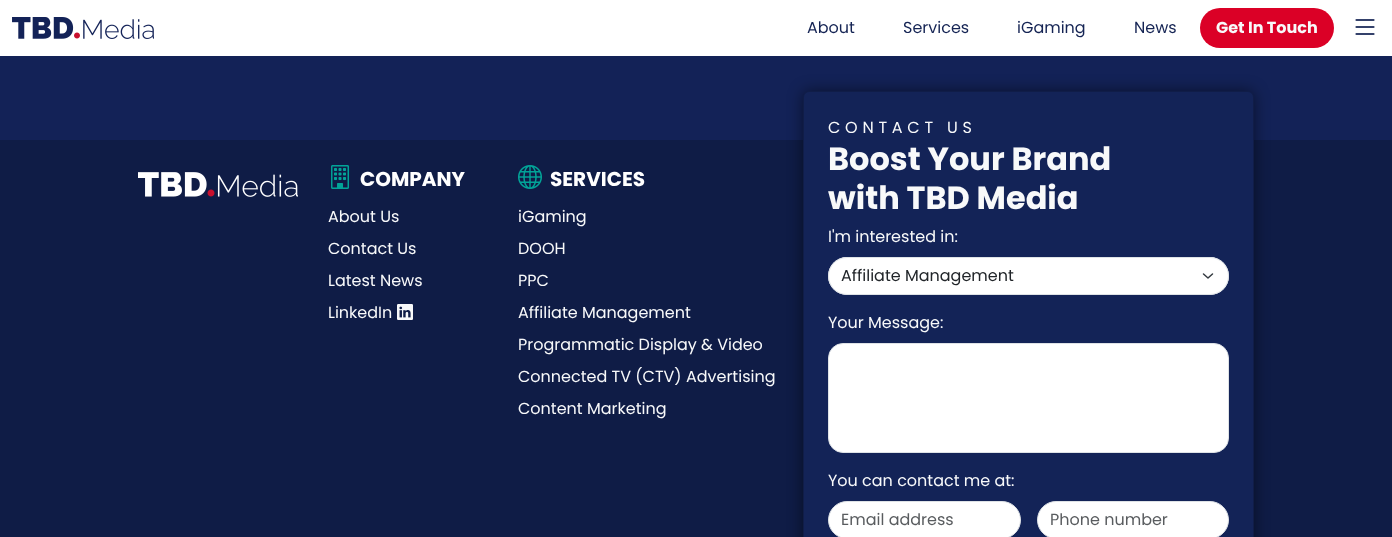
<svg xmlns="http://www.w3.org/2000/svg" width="1392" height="537">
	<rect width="100%" height="100%" fill="#132257" />
	<rect x="0" y="0" width="1392" height="56" fill="#FFFFFF" />
	<image x="12" y="17" width="142" height="22" href="assets/img1.png" />
	<g font-family="Poppins" font-size="16" fill="#152454">
		<text x="807" y="33">About</text>
		<text x="903" y="33">Services</text>
		<text x="1017" y="33">iGaming</text>
		<text x="1134" y="33">News</text>
	</g>
	<rect x="1200" y="8" width="134" height="40" rx="20" fill="#DB0026" />
	<text x="1216" y="33" font-family="Poppins" font-size="16" font-weight="700" fill="#F8F9FA">Get In Touch</text>
	<image x="1355" y="19" width="20" height="16" href="assets/img2.png" />
	<rect x="0" y="140" width="1392" height="397" fill="#0F1C46" />
	<image x="138" y="172" width="160" height="25" href="assets/img3.png" />
	<image x="331" y="165" width="19" height="24" href="assets/img4.png" />
	<text x="360" y="186" font-family="Poppins" font-size="20" font-weight="700" fill="#FFFFFF">COMPANY</text>
	<g font-family="Poppins" font-size="16" fill="#F8F9FA">
		<text x="328" y="222">About Us</text>
		<text x="328" y="254">Contact Us</text>
		<text x="328" y="286">Latest News</text>
		<text x="328" y="318">LinkedIn</text>
	</g>
	<image x="397" y="304" width="16" height="16" href="assets/img5.png" />
	<image x="518" y="165" width="24" height="24" href="assets/img6.png" />
	<text x="550" y="186" font-family="Poppins" font-size="20" font-weight="700" fill="#FFFFFF">SERVICES</text>
	<g font-family="Poppins" font-size="16" fill="#F8F9FA">
		<text x="518" y="222">iGaming</text>
		<text x="518" y="254">DOOH</text>
		<text x="518" y="286">PPC</text>
		<text x="518" y="318">Affiliate Management</text>
		<text x="518" y="350">Programmatic Display &amp; Video</text>
		<text x="518" y="382">Connected TV (CTV) Advertising</text>
		<text x="518" y="414">Content Marketing</text>
	</g>
	<rect x="803" y="91" width="451" height="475" rx="6" fill="#000000" fill-opacity="0.5" filter="blur(7.5px)" />
	<rect x="803.5" y="91.5" width="450" height="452" rx="5.5" fill="#132357" stroke="#101D48" />
	<text x="828" y="133" font-family="Poppins" font-size="16" letter-spacing="4.75" fill="#F8F9FA">CONTACT US</text>
	<g font-family="Poppins" font-size="32" font-weight="700" fill="#F8F9FA">
		<text x="828" y="170">Boost Your Brand</text>
		<text x="828" y="209">with TBD Media</text>
	</g>
	<text x="828" y="242" font-family="Poppins" font-size="16" fill="#F8F9FA">I'm interested in:</text>
	<rect x="828" y="257" width="401" height="38" rx="19" fill="#FFFFFF" />
	<path d="M1203.5 274L1208 278L1212.5 274" fill="none" stroke="#343A40" stroke-width="1.5" stroke-linecap="round" stroke-linejoin="round" />
	<rect x="828.5" y="257.5" width="400" height="37" rx="18.5" fill="none" stroke="#DEE2E6" />
	<text x="841" y="281" font-family="Poppins" font-size="16" fill="#212529">Affiliate Management</text>
	<text x="828" y="328" font-family="Poppins" font-size="16" fill="#F8F9FA">Your Message:</text>
	<rect x="828.5" y="343.5" width="400" height="109" rx="14.5" fill="#FFFFFF" stroke="#DEE2E6" />
	<text x="828" y="486" font-family="Poppins" font-size="16" fill="#F8F9FA">You can contact me at:</text>
	<rect x="828.5" y="501.5" width="192" height="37" rx="18.5" fill="#FFFFFF" stroke="#DEE2E6" />
	<text x="841" y="525" font-family="Poppins" font-size="16" fill="#595C5F">Email address</text>
	<rect x="1037.5" y="501.5" width="191" height="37" rx="18.5" fill="#FFFFFF" stroke="#DEE2E6" />
	<text x="1050" y="525" font-family="Poppins" font-size="16" fill="#595C5F">Phone number</text>
</svg>
